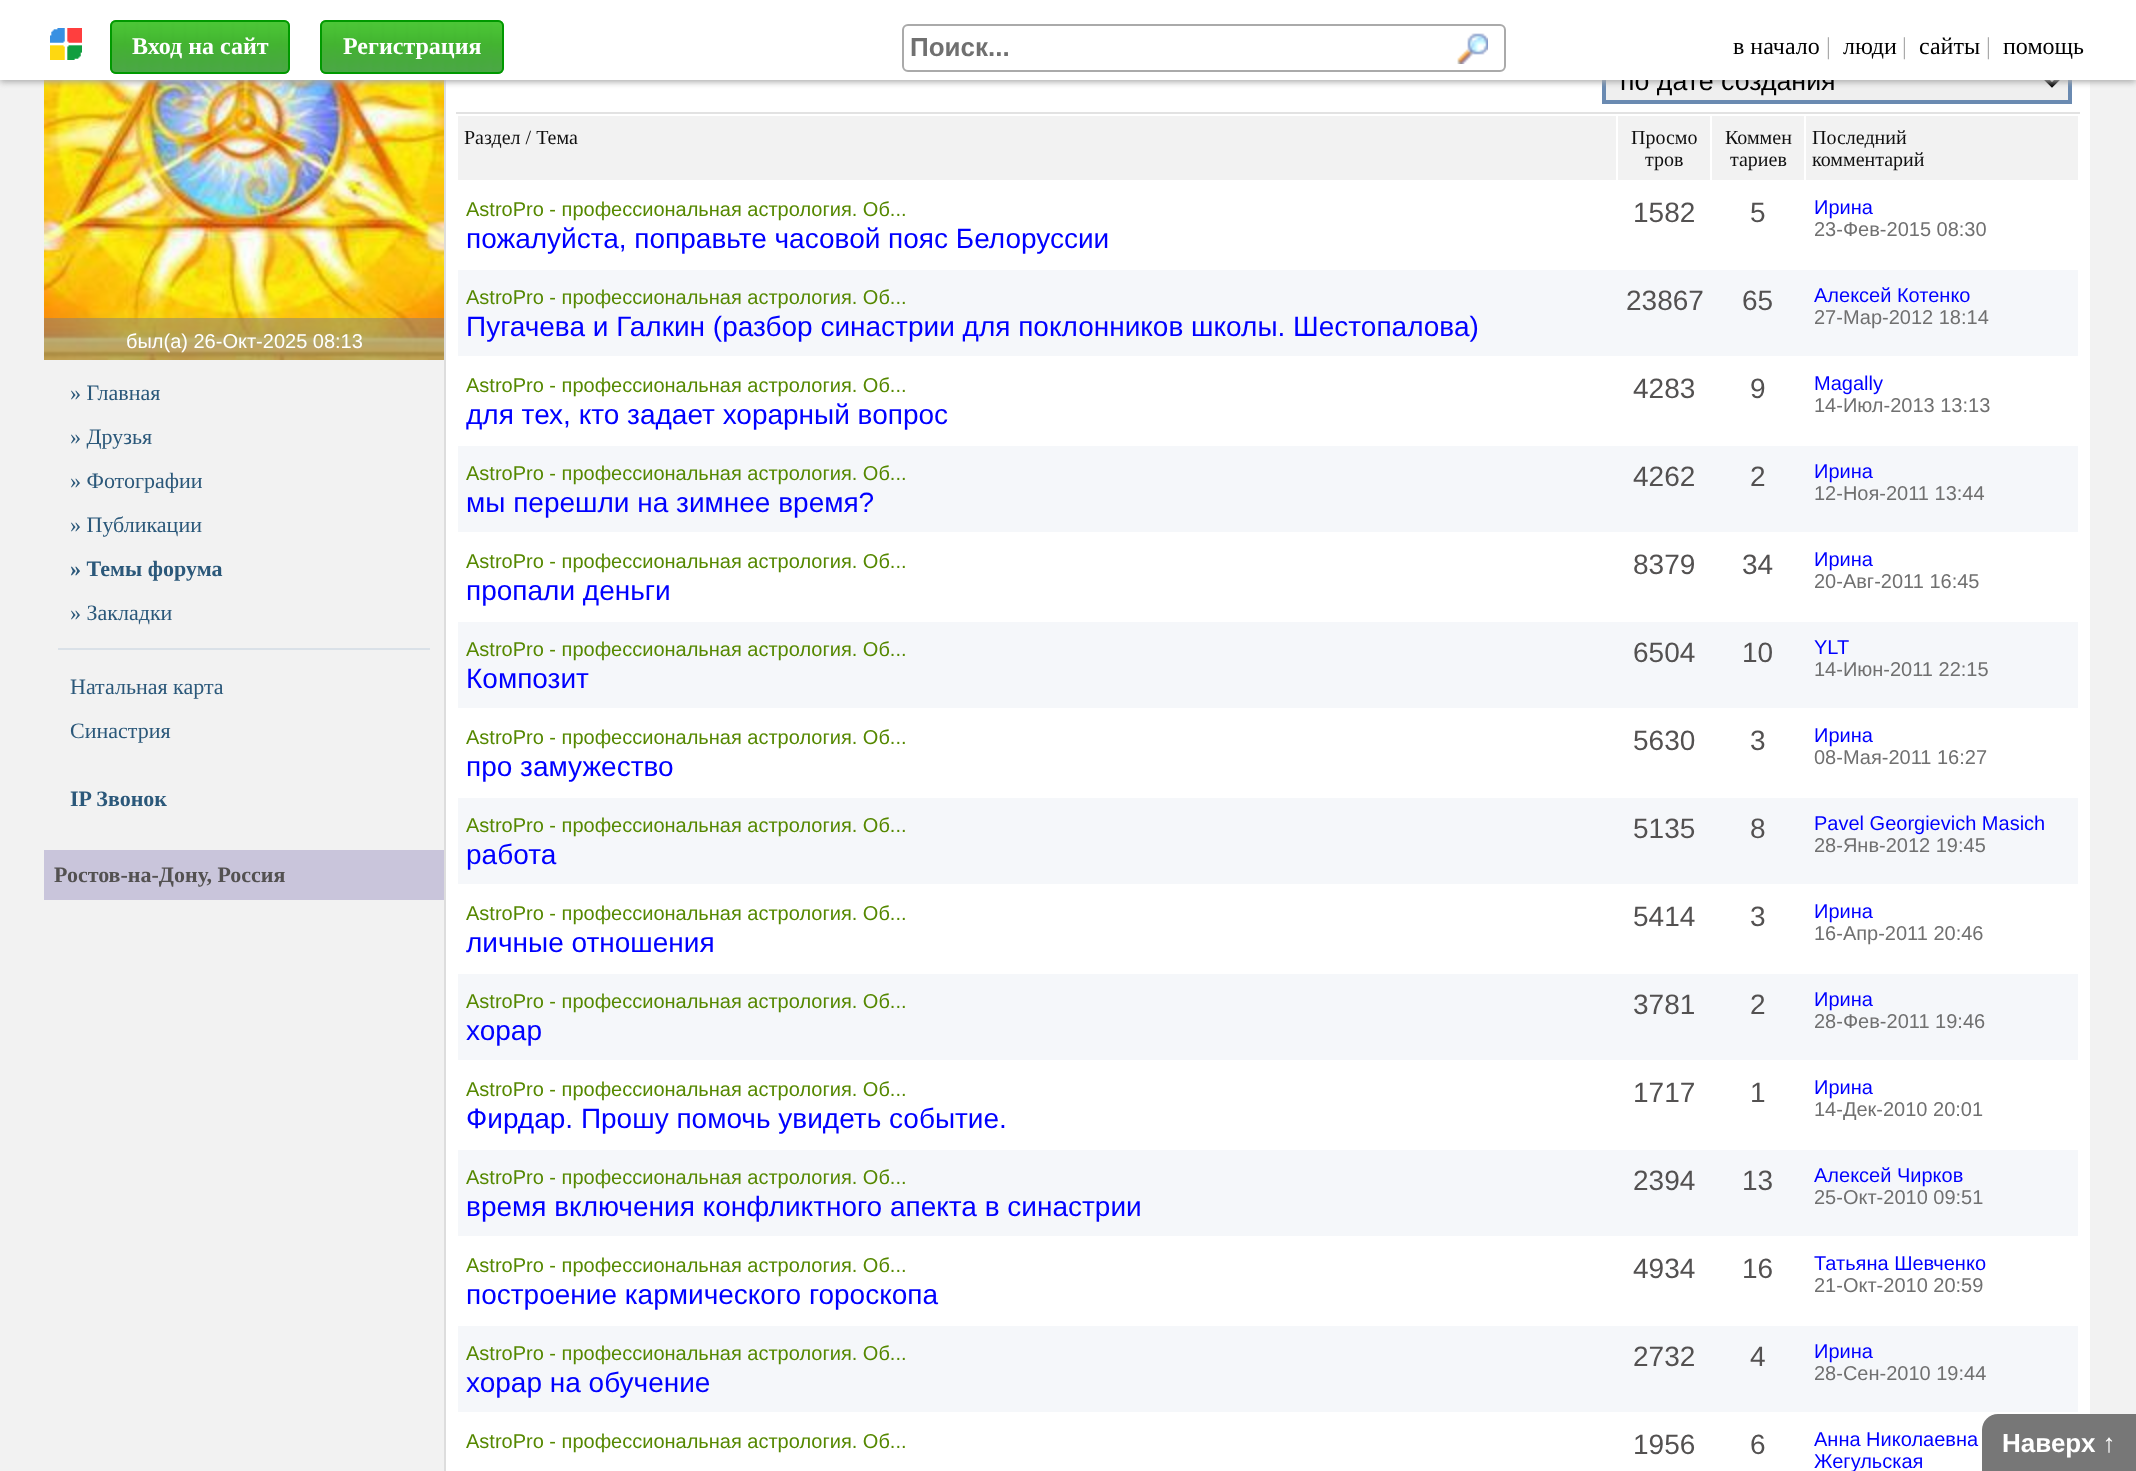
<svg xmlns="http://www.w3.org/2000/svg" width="2136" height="1471">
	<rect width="100%" height="100%" fill="#F2F2F2" />
	<image x="44" y="80" width="400" height="280" href="assets/img5.png" />
	<rect x="446" y="80" width="1644" height="1391" fill="#FFFFFF" />
	<rect x="444" y="80" width="2" height="1391" fill="#DDDDDD" />
	<rect x="1606" y="80" width="462" height="20" fill="#EFEFEF" />
	<rect x="1604" y="60" width="466" height="42" fill="none" stroke="#6A8AB1" stroke-width="4" />
	<path d="M2044 77L2052 85L2060 77" fill="none" stroke="#000000" stroke-width="4" />
	<rect x="0" y="2" width="2136" height="80" fill="#AAAAAA" filter="blur(3px)" />
	<text x="1620" y="90" font-family="Liberation Sans" font-size="26.75" fill="#000000">по дате создания</text>
	<rect x="0" y="0" width="2136" height="80" fill="#FFFFFF" />
	<image x="50" y="28" width="32" height="32" href="assets/img1.png" />
	<image x="110" y="20" width="180" height="54" href="assets/img2.png" />
	<rect x="111" y="21" width="178" height="52" rx="5" fill="none" stroke="#009900" stroke-width="2" />
	<text x="132" y="54" font-family="Liberation Serif" font-size="24" font-weight="700" fill="#FFFFFF">Вход на сайт</text>
	<image x="320" y="20" width="184" height="54" href="assets/img3.png" />
	<rect x="321" y="21" width="182" height="52" rx="5" fill="none" stroke="#009900" stroke-width="2" />
	<text x="343" y="54" font-family="Liberation Serif" font-size="24" font-weight="700" fill="#FFFFFF">Регистрация</text>
	<rect x="903" y="25" width="602" height="46" rx="5" fill="none" stroke="#AAAAAA" stroke-width="2" />
	<text x="910" y="56" font-family="Liberation Sans" font-size="26" font-weight="700" fill="#707070">Поиск...</text>
	<image x="1457" y="33" width="31" height="31" href="assets/img4.png" />
	<text x="1733" y="54" font-family="Liberation Serif" font-size="24" fill="#000000">в начало</text>
	<text x="1826" y="54" font-family="Liberation Serif" font-size="24" fill="#AAAAAA">|</text>
	<text x="1843" y="54" font-family="Liberation Serif" font-size="24" fill="#000000">люди</text>
	<text x="1902" y="54" font-family="Liberation Serif" font-size="24" fill="#AAAAAA">|</text>
	<text x="1919" y="54" font-family="Liberation Serif" font-size="24" fill="#000000">сайты</text>
	<text x="1986" y="54" font-family="Liberation Serif" font-size="24" fill="#AAAAAA">|</text>
	<text x="2003" y="54" font-family="Liberation Serif" font-size="24" fill="#000000">помощь</text>
	<rect x="44" y="318" width="400" height="42" fill="#808080" fill-opacity="0.5" />
	<text x="126" y="348" font-family="Liberation Sans" font-size="20" fill="#FFFFFF">был(а) 26-Окт-2025 08:13</text>
	<g font-family="Liberation Serif" font-size="22" fill="#2B587A">
		<text x="70" y="400">» Главная</text>
		<text x="70" y="444">» Друзья</text>
		<text x="70" y="488">» Фотографии</text>
		<text x="70" y="532">» Публикации</text>
	</g>
	<text x="70" y="576" font-family="Liberation Serif" font-size="22" font-weight="700" fill="#2B587A">» Темы форума</text>
	<text x="70" y="620" font-family="Liberation Serif" font-size="22" fill="#2B587A">» Закладки</text>
	<rect x="58" y="648" width="372" height="2" fill="#DAE1E8" />
	<g font-family="Liberation Serif" font-size="22" fill="#2B587A">
		<text x="70" y="694">Натальная карта</text>
		<text x="70" y="738">Синастрия</text>
	</g>
	<text x="70" y="806" font-family="Liberation Serif" font-size="22" font-weight="700" fill="#2B587A">IP Звонок</text>
	<rect x="44" y="850" width="400" height="50" fill="#C9C5DB" />
	<text x="54" y="882" font-family="Liberation Serif" font-size="22" font-weight="700" fill="#535151">Ростов-на-Дону, Россия</text>
	<rect x="456" y="112" width="1624" height="2" fill="#E2E2E2" />
	<rect x="458" y="116" width="1158" height="64" fill="#F2F2F2" />
	<text x="464" y="144" font-family="Liberation Serif" font-size="20" fill="#101010">Раздел / Тема</text>
	<rect x="1618" y="116" width="92" height="64" fill="#F2F2F2" />
	<g font-family="Liberation Serif" font-size="20" fill="#101010">
		<text x="1631" y="144">Просмо</text>
		<text x="1645" y="166">тров</text>
	</g>
	<rect x="1712" y="116" width="92" height="64" fill="#F2F2F2" />
	<g font-family="Liberation Serif" font-size="20" fill="#101010">
		<text x="1725" y="144">Коммен</text>
		<text x="1730" y="166">тариев</text>
	</g>
	<rect x="1806" y="116" width="272" height="64" fill="#F2F2F2" />
	<g font-family="Liberation Serif" font-size="20" fill="#101010">
		<text x="1812" y="144">Последний</text>
		<text x="1812" y="166">комментарий</text>
	</g>
	<text x="466" y="216" font-family="Liberation Sans" font-size="20" fill="#558800">AstroPro - профессиональная астрология. Об...</text>
	<text x="466" y="248" font-family="Liberation Sans" font-size="28" fill="#0000FF">пожалуйста, поправьте часовой пояс Белоруссии</text>
	<g font-family="Liberation Sans" font-size="28" fill="#535151">
		<text x="1633" y="222">1582</text>
		<text x="1750" y="222">5</text>
	</g>
	<text x="1814" y="214" font-family="Liberation Sans" font-size="20" fill="#0000FF">Ирина</text>
	<text x="1814" y="236" font-family="Liberation Sans" font-size="20" fill="#707070">23-Фев-2015 08:30</text>
	<rect x="458" y="270" width="1620" height="86" fill="#F5F7FA" />
	<text x="466" y="304" font-family="Liberation Sans" font-size="20" fill="#558800">AstroPro - профессиональная астрология. Об...</text>
	<text x="466" y="336" font-family="Liberation Sans" font-size="28" fill="#0000FF">Пугачева и Галкин (разбор синастрии для поклонников школы. Шестопалова)</text>
	<g font-family="Liberation Sans" font-size="28" fill="#535151">
		<text x="1626" y="310">23867</text>
		<text x="1742" y="310">65</text>
	</g>
	<text x="1814" y="302" font-family="Liberation Sans" font-size="20" fill="#0000FF">Алексей Котенко</text>
	<text x="1814" y="324" font-family="Liberation Sans" font-size="20" fill="#707070">27-Мар-2012 18:14</text>
	<text x="466" y="392" font-family="Liberation Sans" font-size="20" fill="#558800">AstroPro - профессиональная астрология. Об...</text>
	<text x="466" y="424" font-family="Liberation Sans" font-size="28" fill="#0000FF">для тех, кто задает хорарный вопрос</text>
	<g font-family="Liberation Sans" font-size="28" fill="#535151">
		<text x="1633" y="398">4283</text>
		<text x="1750" y="398">9</text>
	</g>
	<text x="1814" y="390" font-family="Liberation Sans" font-size="20" fill="#0000FF">Magally</text>
	<text x="1814" y="412" font-family="Liberation Sans" font-size="20" fill="#707070">14-Июл-2013 13:13</text>
	<rect x="458" y="446" width="1620" height="86" fill="#F5F7FA" />
	<text x="466" y="480" font-family="Liberation Sans" font-size="20" fill="#558800">AstroPro - профессиональная астрология. Об...</text>
	<text x="466" y="512" font-family="Liberation Sans" font-size="28" fill="#0000FF">мы перешли на зимнее время?</text>
	<g font-family="Liberation Sans" font-size="28" fill="#535151">
		<text x="1633" y="486">4262</text>
		<text x="1750" y="486">2</text>
	</g>
	<text x="1814" y="478" font-family="Liberation Sans" font-size="20" fill="#0000FF">Ирина</text>
	<text x="1814" y="500" font-family="Liberation Sans" font-size="20" fill="#707070">12-Ноя-2011 13:44</text>
	<text x="466" y="568" font-family="Liberation Sans" font-size="20" fill="#558800">AstroPro - профессиональная астрология. Об...</text>
	<text x="466" y="600" font-family="Liberation Sans" font-size="28" fill="#0000FF">пропали деньги</text>
	<g font-family="Liberation Sans" font-size="28" fill="#535151">
		<text x="1633" y="574">8379</text>
		<text x="1742" y="574">34</text>
	</g>
	<text x="1814" y="566" font-family="Liberation Sans" font-size="20" fill="#0000FF">Ирина</text>
	<text x="1814" y="588" font-family="Liberation Sans" font-size="20" fill="#707070">20-Авг-2011 16:45</text>
	<rect x="458" y="622" width="1620" height="86" fill="#F5F7FA" />
	<text x="466" y="656" font-family="Liberation Sans" font-size="20" fill="#558800">AstroPro - профессиональная астрология. Об...</text>
	<text x="466" y="688" font-family="Liberation Sans" font-size="28" fill="#0000FF">Композит</text>
	<g font-family="Liberation Sans" font-size="28" fill="#535151">
		<text x="1633" y="662">6504</text>
		<text x="1742" y="662">10</text>
	</g>
	<text x="1814" y="654" font-family="Liberation Sans" font-size="20" fill="#0000FF">YLT</text>
	<text x="1814" y="676" font-family="Liberation Sans" font-size="20" fill="#707070">14-Июн-2011 22:15</text>
	<text x="466" y="744" font-family="Liberation Sans" font-size="20" fill="#558800">AstroPro - профессиональная астрология. Об...</text>
	<text x="466" y="776" font-family="Liberation Sans" font-size="28" fill="#0000FF">про замужество</text>
	<g font-family="Liberation Sans" font-size="28" fill="#535151">
		<text x="1633" y="750">5630</text>
		<text x="1750" y="750">3</text>
	</g>
	<text x="1814" y="742" font-family="Liberation Sans" font-size="20" fill="#0000FF">Ирина</text>
	<text x="1814" y="764" font-family="Liberation Sans" font-size="20" fill="#707070">08-Мая-2011 16:27</text>
	<rect x="458" y="798" width="1620" height="86" fill="#F5F7FA" />
	<text x="466" y="832" font-family="Liberation Sans" font-size="20" fill="#558800">AstroPro - профессиональная астрология. Об...</text>
	<text x="466" y="864" font-family="Liberation Sans" font-size="28" fill="#0000FF">работа</text>
	<g font-family="Liberation Sans" font-size="28" fill="#535151">
		<text x="1633" y="838">5135</text>
		<text x="1750" y="838">8</text>
	</g>
	<text x="1814" y="830" font-family="Liberation Sans" font-size="20" fill="#0000FF">Pavel Georgievich Masich</text>
	<text x="1814" y="852" font-family="Liberation Sans" font-size="20" fill="#707070">28-Янв-2012 19:45</text>
	<text x="466" y="920" font-family="Liberation Sans" font-size="20" fill="#558800">AstroPro - профессиональная астрология. Об...</text>
	<text x="466" y="952" font-family="Liberation Sans" font-size="28" fill="#0000FF">личные отношения</text>
	<g font-family="Liberation Sans" font-size="28" fill="#535151">
		<text x="1633" y="926">5414</text>
		<text x="1750" y="926">3</text>
	</g>
	<text x="1814" y="918" font-family="Liberation Sans" font-size="20" fill="#0000FF">Ирина</text>
	<text x="1814" y="940" font-family="Liberation Sans" font-size="20" fill="#707070">16-Апр-2011 20:46</text>
	<rect x="458" y="974" width="1620" height="86" fill="#F5F7FA" />
	<text x="466" y="1008" font-family="Liberation Sans" font-size="20" fill="#558800">AstroPro - профессиональная астрология. Об...</text>
	<text x="466" y="1040" font-family="Liberation Sans" font-size="28" fill="#0000FF">хорар</text>
	<g font-family="Liberation Sans" font-size="28" fill="#535151">
		<text x="1633" y="1014">3781</text>
		<text x="1750" y="1014">2</text>
	</g>
	<text x="1814" y="1006" font-family="Liberation Sans" font-size="20" fill="#0000FF">Ирина</text>
	<text x="1814" y="1028" font-family="Liberation Sans" font-size="20" fill="#707070">28-Фев-2011 19:46</text>
	<text x="466" y="1096" font-family="Liberation Sans" font-size="20" fill="#558800">AstroPro - профессиональная астрология. Об...</text>
	<text x="466" y="1128" font-family="Liberation Sans" font-size="28" fill="#0000FF">Фирдар. Прошу помочь увидеть событие.</text>
	<g font-family="Liberation Sans" font-size="28" fill="#535151">
		<text x="1633" y="1102">1717</text>
		<text x="1750" y="1102">1</text>
	</g>
	<text x="1814" y="1094" font-family="Liberation Sans" font-size="20" fill="#0000FF">Ирина</text>
	<text x="1814" y="1116" font-family="Liberation Sans" font-size="20" fill="#707070">14-Дек-2010 20:01</text>
	<rect x="458" y="1150" width="1620" height="86" fill="#F5F7FA" />
	<text x="466" y="1184" font-family="Liberation Sans" font-size="20" fill="#558800">AstroPro - профессиональная астрология. Об...</text>
	<text x="466" y="1216" font-family="Liberation Sans" font-size="28" fill="#0000FF">время включения конфликтного апекта в синастрии</text>
	<g font-family="Liberation Sans" font-size="28" fill="#535151">
		<text x="1633" y="1190">2394</text>
		<text x="1742" y="1190">13</text>
	</g>
	<text x="1814" y="1182" font-family="Liberation Sans" font-size="20" fill="#0000FF">Алексей Чирков</text>
	<text x="1814" y="1204" font-family="Liberation Sans" font-size="20" fill="#707070">25-Окт-2010 09:51</text>
	<text x="466" y="1272" font-family="Liberation Sans" font-size="20" fill="#558800">AstroPro - профессиональная астрология. Об...</text>
	<text x="466" y="1304" font-family="Liberation Sans" font-size="28" fill="#0000FF">построение кармического гороскопа</text>
	<g font-family="Liberation Sans" font-size="28" fill="#535151">
		<text x="1633" y="1278">4934</text>
		<text x="1742" y="1278">16</text>
	</g>
	<text x="1814" y="1270" font-family="Liberation Sans" font-size="20" fill="#0000FF">Татьяна Шевченко</text>
	<text x="1814" y="1292" font-family="Liberation Sans" font-size="20" fill="#707070">21-Окт-2010 20:59</text>
	<rect x="458" y="1326" width="1620" height="86" fill="#F5F7FA" />
	<text x="466" y="1360" font-family="Liberation Sans" font-size="20" fill="#558800">AstroPro - профессиональная астрология. Об...</text>
	<text x="466" y="1392" font-family="Liberation Sans" font-size="28" fill="#0000FF">хорар на обучение</text>
	<g font-family="Liberation Sans" font-size="28" fill="#535151">
		<text x="1633" y="1366">2732</text>
		<text x="1750" y="1366">4</text>
	</g>
	<text x="1814" y="1358" font-family="Liberation Sans" font-size="20" fill="#0000FF">Ирина</text>
	<text x="1814" y="1380" font-family="Liberation Sans" font-size="20" fill="#707070">28-Сен-2010 19:44</text>
	<text x="466" y="1448" font-family="Liberation Sans" font-size="20" fill="#558800">AstroPro - профессиональная астрология. Об...</text>
	<g font-family="Liberation Sans" font-size="28" fill="#535151">
		<text x="1633" y="1454">1956</text>
		<text x="1750" y="1454">6</text>
	</g>
	<g font-family="Liberation Sans" font-size="20" fill="#0000FF">
		<text x="1814" y="1446">Анна Николаевна</text>
		<text x="1814" y="1468">Жегульская</text>
	</g>
	<path d="M1998 1414H2136V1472H1982V1430C1982 1421 1989 1414 1998 1414Z" fill="#777777" />
	<text x="2002" y="1452" font-family="Liberation Sans" font-size="26" font-weight="700" fill="#FFFFFF">Наверх ↑</text>
</svg>
